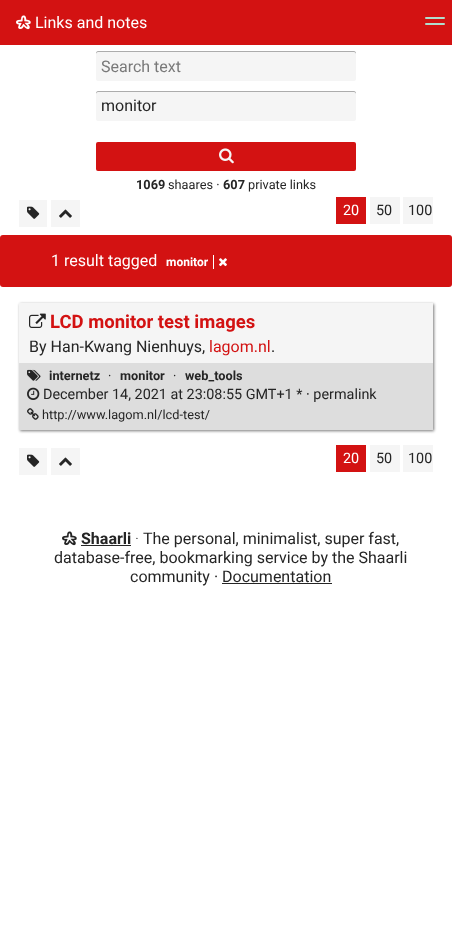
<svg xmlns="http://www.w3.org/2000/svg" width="452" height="941">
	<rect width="100%" height="100%" fill="#FFFFFF" />
	<rect x="0" y="0" width="452" height="45" fill="#D31212" />
	<image x="16" y="15" width="15" height="15" href="assets/img1.png" />
	<text x="35" y="28" font-family="Roboto" font-size="16" fill="#FFFFFF">Links and notes</text>
	<rect x="425" y="17" width="20" height="2" rx="1" fill="#B0DDCE" />
	<rect x="425" y="23" width="20" height="2" rx="1" fill="#B0DDCE" />
	<rect x="96" y="51" width="260" height="30" rx="2" fill="#F5F5F5" />
	<path d="M98 52H354C355 52 356 53 356 54V53C356 52 355 51 354 51H98C97 51 96 52 96 53V54C96 53 97 52 98 52Z" fill="#ACACAC" />
	<text x="101" y="72" font-family="Roboto" font-size="16" fill="#797979">Search text</text>
	<rect x="96" y="91" width="260" height="30" rx="2" fill="#F5F5F5" />
	<path d="M98 92H354C355 92 356 93 356 94V93C356 92 355 91 354 91H98C97 91 96 92 96 93V94C96 93 97 92 98 92Z" fill="#ACACAC" />
	<text x="101" y="111" font-family="Roboto" font-size="16" fill="#252525">monitor</text>
	<rect x="96" y="142" width="260" height="29" rx="2" fill="#D31212" />
	<image x="219" y="148" width="15" height="16" href="assets/img2.png" />
	<text x="136" y="189" font-family="Roboto" font-size="12.75" font-weight="700" fill="#252525">1069</text>
	<text x="168" y="189" font-family="Roboto" font-size="12.75" fill="#252525">shaares ·</text>
	<text x="223" y="189" font-family="Roboto" font-size="12.75" font-weight="700" fill="#252525">607</text>
	<text x="248" y="189" font-family="Roboto" font-size="12.75" fill="#252525">private links</text>
	<rect x="19" y="200" width="28" height="27" fill="#F5F5F5" />
	<image x="27" y="206" width="13" height="13" href="assets/img3.png" />
	<rect x="51" y="200" width="29" height="27" fill="#F5F5F5" />
	<image x="59" y="209" width="13" height="9" href="assets/img4.png" />
	<rect x="336" y="197" width="30" height="27" fill="#D31212" />
	<text x="343" y="215" font-family="Roboto" font-size="14.4" fill="#FFFFFF">20</text>
	<rect x="370" y="197" width="30" height="27" fill="#F5F5F5" />
	<text x="376" y="215" font-family="Roboto" font-size="14.4" fill="#252525">50</text>
	<rect x="403" y="197" width="30" height="27" fill="#F5F5F5" />
	<text x="408" y="215" font-family="Roboto" font-size="14.4" fill="#252525">100</text>
	<rect x="0" y="235" width="452" height="52" rx="3" fill="#D31212" />
	<text x="51" y="266" font-family="Roboto" font-size="16" fill="#FFFFFF">1 result tagged</text>
	<text x="166" y="266" font-family="Roboto" font-size="12" font-weight="700" fill="#FFFFFF">monitor</text>
	<rect x="213" y="255" width="1" height="14" fill="#FFFFFF" />
	<image x="219" y="258" width="8" height="9" href="assets/img5.png" />
	<rect x="20" y="304" width="414" height="127" fill="#797979" filter="blur(1.5px)" />
	<rect x="19" y="303" width="414" height="60" fill="#F5F5F5" />
	<image x="29" y="313" width="17" height="15" href="assets/img6.png" />
	<text x="50" y="328" font-family="Roboto" font-size="18.5" font-weight="700" fill="#D31212">LCD monitor test images</text>
	<text x="29" y="352" font-family="Roboto" font-size="16" fill="#252525">By Han-Kwang Nienhuys,</text>
	<text x="209" y="352" font-family="Roboto" font-size="16" fill="#D31212">lagom.nl</text>
	<text x="271" y="352" font-family="Roboto" font-size="16" fill="#252525">.</text>
	<rect x="19" y="363" width="414" height="67" fill="#DDDDDD" />
	<image x="27" y="369" width="14" height="12" href="assets/img7.png" />
	<text x="49" y="380" font-family="Roboto" font-size="12.75" font-weight="700" fill="#252525">internetz</text>
	<text x="108" y="380" font-family="Roboto" font-size="12.75" fill="#252525">·</text>
	<text x="120" y="380" font-family="Roboto" font-size="12.75" font-weight="700" fill="#252525">monitor</text>
	<text x="173" y="380" font-family="Roboto" font-size="12.75" fill="#252525">·</text>
	<text x="185" y="380" font-family="Roboto" font-size="12.75" font-weight="700" fill="#252525">web_tools</text>
	<image x="27" y="387" width="13" height="13" href="assets/img8.png" />
	<text x="43" y="399" font-family="Roboto" font-size="14.4" fill="#252525">December 14, 2021 at 23:08:55 GMT+1 * · permalink</text>
	<image x="27" y="408" width="12" height="12" href="assets/img9.png" />
	<text x="42" y="419" font-family="Roboto" font-size="12.75" fill="#252525">http://www.lagom.nl/lcd-test/</text>
	<rect x="19" y="448" width="28" height="27" fill="#F5F5F5" />
	<image x="27" y="454" width="13" height="13" href="assets/img3.png" />
	<rect x="51" y="448" width="29" height="27" fill="#F5F5F5" />
	<image x="59" y="457" width="13" height="9" href="assets/img4.png" />
	<rect x="336" y="445" width="30" height="27" fill="#D31212" />
	<text x="343" y="463" font-family="Roboto" font-size="14.4" fill="#FFFFFF">20</text>
	<rect x="370" y="445" width="30" height="27" fill="#F5F5F5" />
	<text x="376" y="463" font-family="Roboto" font-size="14.4" fill="#252525">50</text>
	<rect x="403" y="445" width="30" height="27" fill="#F5F5F5" />
	<text x="408" y="463" font-family="Roboto" font-size="14.4" fill="#252525">100</text>
	<image x="62" y="531" width="15" height="15" href="assets/img10.png" />
	<text x="81" y="544" font-family="Roboto" font-size="16" font-weight="700" fill="#252525">Shaarli</text>
	<rect x="81" y="545" width="50" height="1" fill="#252525" />
	<text x="135" y="544" font-family="Roboto" font-size="16" font-weight="300" fill="#252525">·</text>
	<g font-family="Roboto" font-size="16" fill="#252525">
		<text x="143" y="544">The personal, minimalist, super fast,</text>
		<text x="54" y="563">database-free, bookmarking service by the Shaarli</text>
		<text x="130" y="582">community · Documentation</text>
	</g>
	<rect x="222" y="583" width="110" height="1" fill="#252525" />
</svg>
